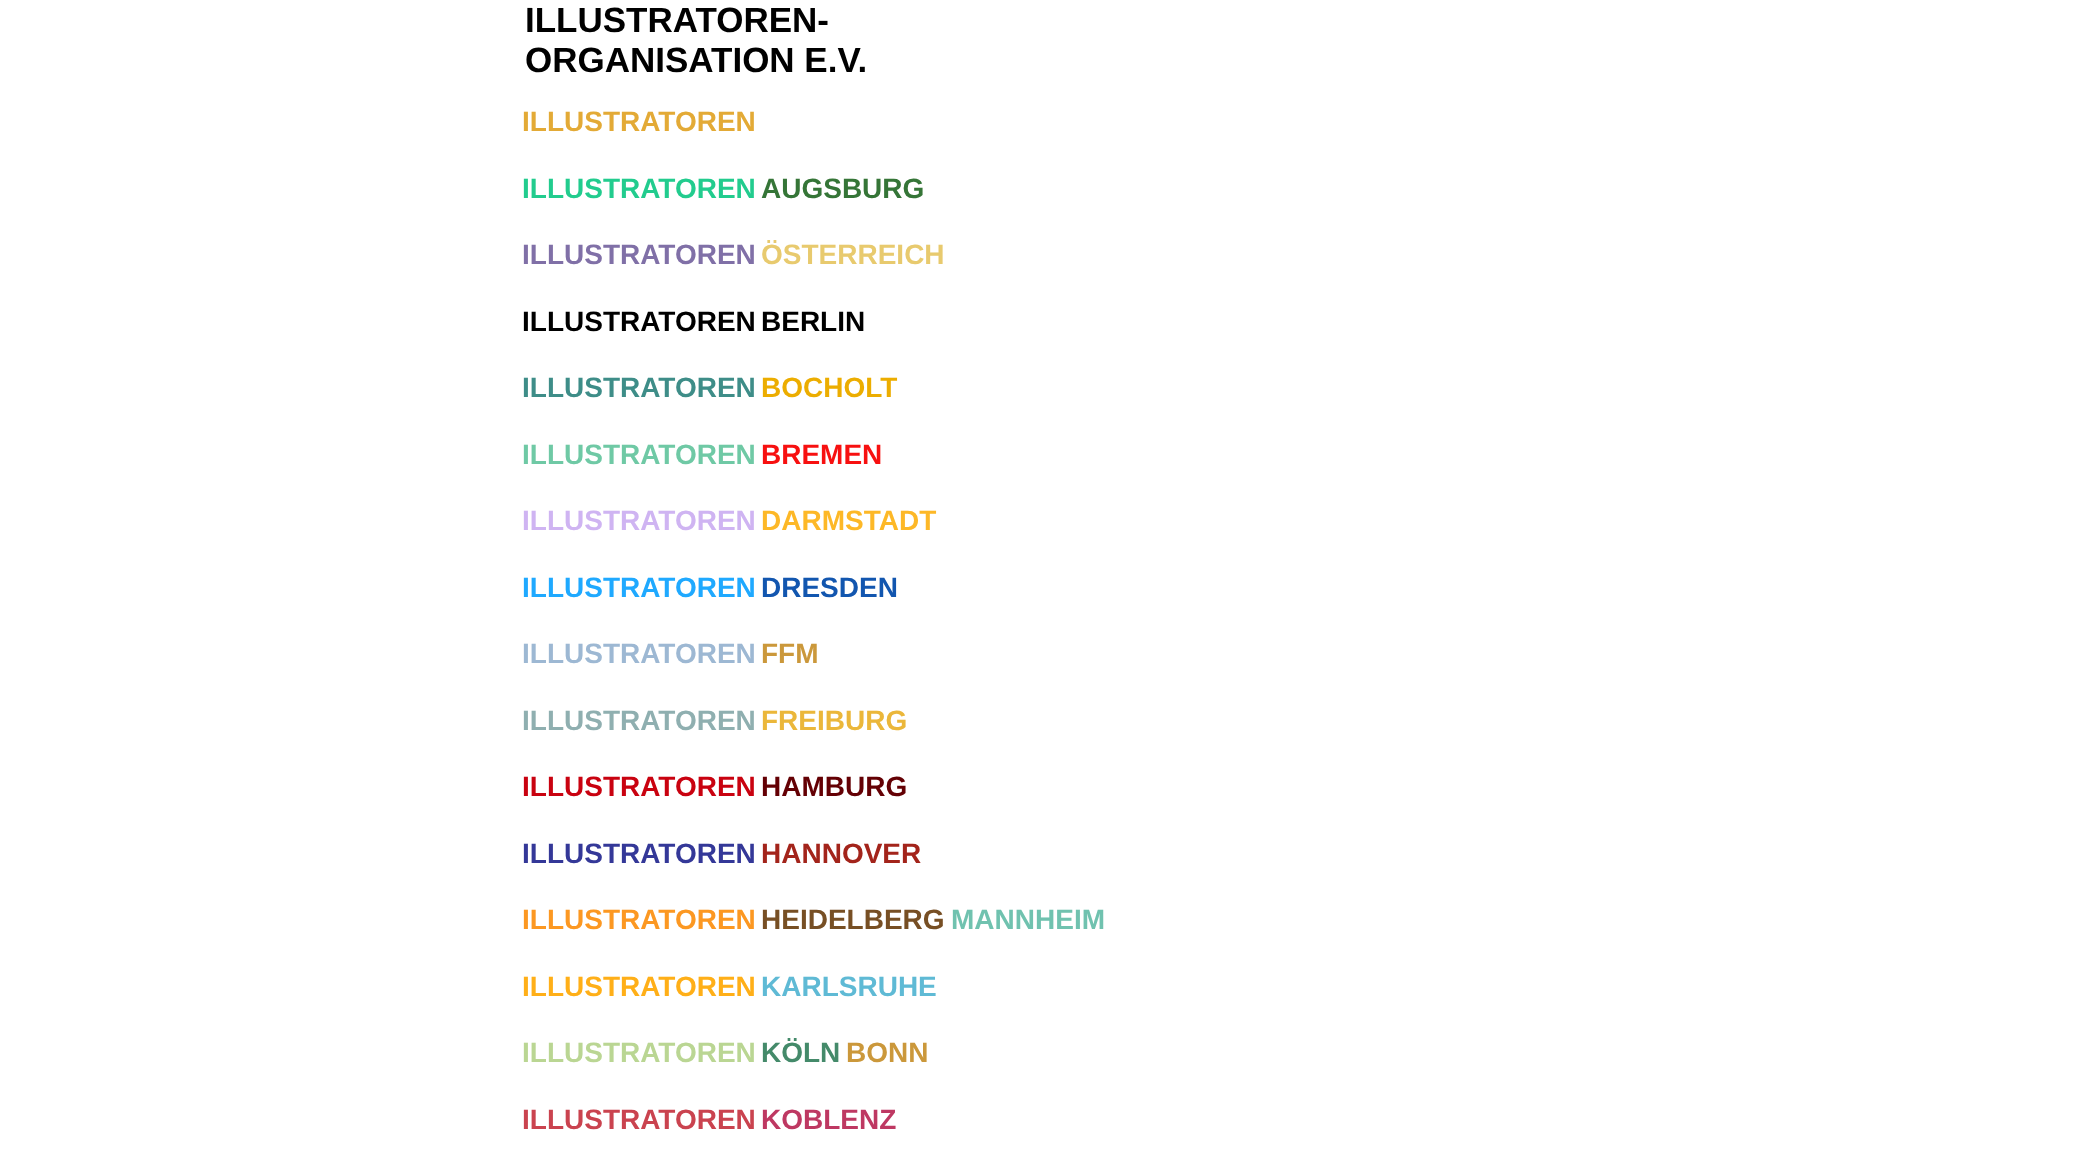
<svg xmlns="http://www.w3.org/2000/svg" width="2093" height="1151">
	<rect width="100%" height="100%" fill="#FFFFFF" />
	<g font-family="Liberation Sans" font-size="35" font-weight="700" fill="#000000">
		<text x="525" y="32">ILLUSTRATOREN-</text>
		<text x="525" y="72">ORGANISATION E.V.</text>
	</g>
	<text x="522" y="131" font-family="Liberation Sans" font-size="28" font-weight="700" fill="#E3AA36">ILLUSTRATOREN</text>
	<text x="522" y="198" font-family="Liberation Sans" font-size="28" font-weight="700" fill="#22CC8E">ILLUSTRATOREN</text>
	<text x="761" y="198" font-family="Liberation Sans" font-size="28" font-weight="700" fill="#357537">AUGSBURG</text>
	<text x="522" y="264" font-family="Liberation Sans" font-size="28" font-weight="700" fill="#8070A7">ILLUSTRATOREN</text>
	<text x="761" y="264" font-family="Liberation Sans" font-size="28" font-weight="700" fill="#E8CA6E">ÖSTERREICH</text>
	<g font-family="Liberation Sans" font-size="28" font-weight="700" fill="#000000">
		<text x="522" y="331">ILLUSTRATOREN</text>
		<text x="761" y="331">BERLIN</text>
	</g>
	<text x="522" y="397" font-family="Liberation Sans" font-size="28" font-weight="700" fill="#3E8D88">ILLUSTRATOREN</text>
	<text x="761" y="397" font-family="Liberation Sans" font-size="28" font-weight="700" fill="#ECAD00">BOCHOLT</text>
	<text x="522" y="464" font-family="Liberation Sans" font-size="28" font-weight="700" fill="#6FC9A5">ILLUSTRATOREN</text>
	<text x="761" y="464" font-family="Liberation Sans" font-size="28" font-weight="700" fill="#F71010">BREMEN</text>
	<text x="522" y="530" font-family="Liberation Sans" font-size="28" font-weight="700" fill="#CFB4F2">ILLUSTRATOREN</text>
	<text x="761" y="530" font-family="Liberation Sans" font-size="28" font-weight="700" fill="#FDB827">DARMSTADT</text>
	<text x="522" y="597" font-family="Liberation Sans" font-size="28" font-weight="700" fill="#1FA9FF">ILLUSTRATOREN</text>
	<text x="761" y="597" font-family="Liberation Sans" font-size="28" font-weight="700" fill="#1256AF">DRESDEN</text>
	<text x="522" y="663" font-family="Liberation Sans" font-size="28" font-weight="700" fill="#9DB8D3">ILLUSTRATOREN</text>
	<text x="761" y="663" font-family="Liberation Sans" font-size="28" font-weight="700" fill="#CB983B">FFM</text>
	<text x="522" y="730" font-family="Liberation Sans" font-size="28" font-weight="700" fill="#8FAFB0">ILLUSTRATOREN</text>
	<text x="761" y="730" font-family="Liberation Sans" font-size="28" font-weight="700" fill="#EBB73A">FREIBURG</text>
	<text x="522" y="796" font-family="Liberation Sans" font-size="28" font-weight="700" fill="#C90210">ILLUSTRATOREN</text>
	<text x="761" y="796" font-family="Liberation Sans" font-size="28" font-weight="700" fill="#640004">HAMBURG</text>
	<text x="522" y="863" font-family="Liberation Sans" font-size="28" font-weight="700" fill="#343898">ILLUSTRATOREN</text>
	<text x="761" y="863" font-family="Liberation Sans" font-size="28" font-weight="700" fill="#A3241B">HANNOVER</text>
	<text x="522" y="929" font-family="Liberation Sans" font-size="28" font-weight="700" fill="#FC9822">ILLUSTRATOREN</text>
	<text x="761" y="929" font-family="Liberation Sans" font-size="28" font-weight="700" fill="#774F24">HEIDELBERG</text>
	<text x="951" y="929" font-family="Liberation Sans" font-size="28" font-weight="700" fill="#70C2AF">MANNHEIM</text>
	<text x="522" y="996" font-family="Liberation Sans" font-size="28" font-weight="700" fill="#FFAF18">ILLUSTRATOREN</text>
	<text x="761" y="996" font-family="Liberation Sans" font-size="28" font-weight="700" fill="#5FBAD5">KARLSRUHE</text>
	<text x="522" y="1062" font-family="Liberation Sans" font-size="28" font-weight="700" fill="#BAD693">ILLUSTRATOREN</text>
	<text x="761" y="1062" font-family="Liberation Sans" font-size="28" font-weight="700" fill="#448A6A">KÖLN</text>
	<text x="846" y="1062" font-family="Liberation Sans" font-size="28" font-weight="700" fill="#CB983B">BONN</text>
	<text x="522" y="1129" font-family="Liberation Sans" font-size="28" font-weight="700" fill="#CA434F">ILLUSTRATOREN</text>
	<text x="761" y="1129" font-family="Liberation Sans" font-size="28" font-weight="700" fill="#BE3862">KOBLENZ</text>
</svg>
